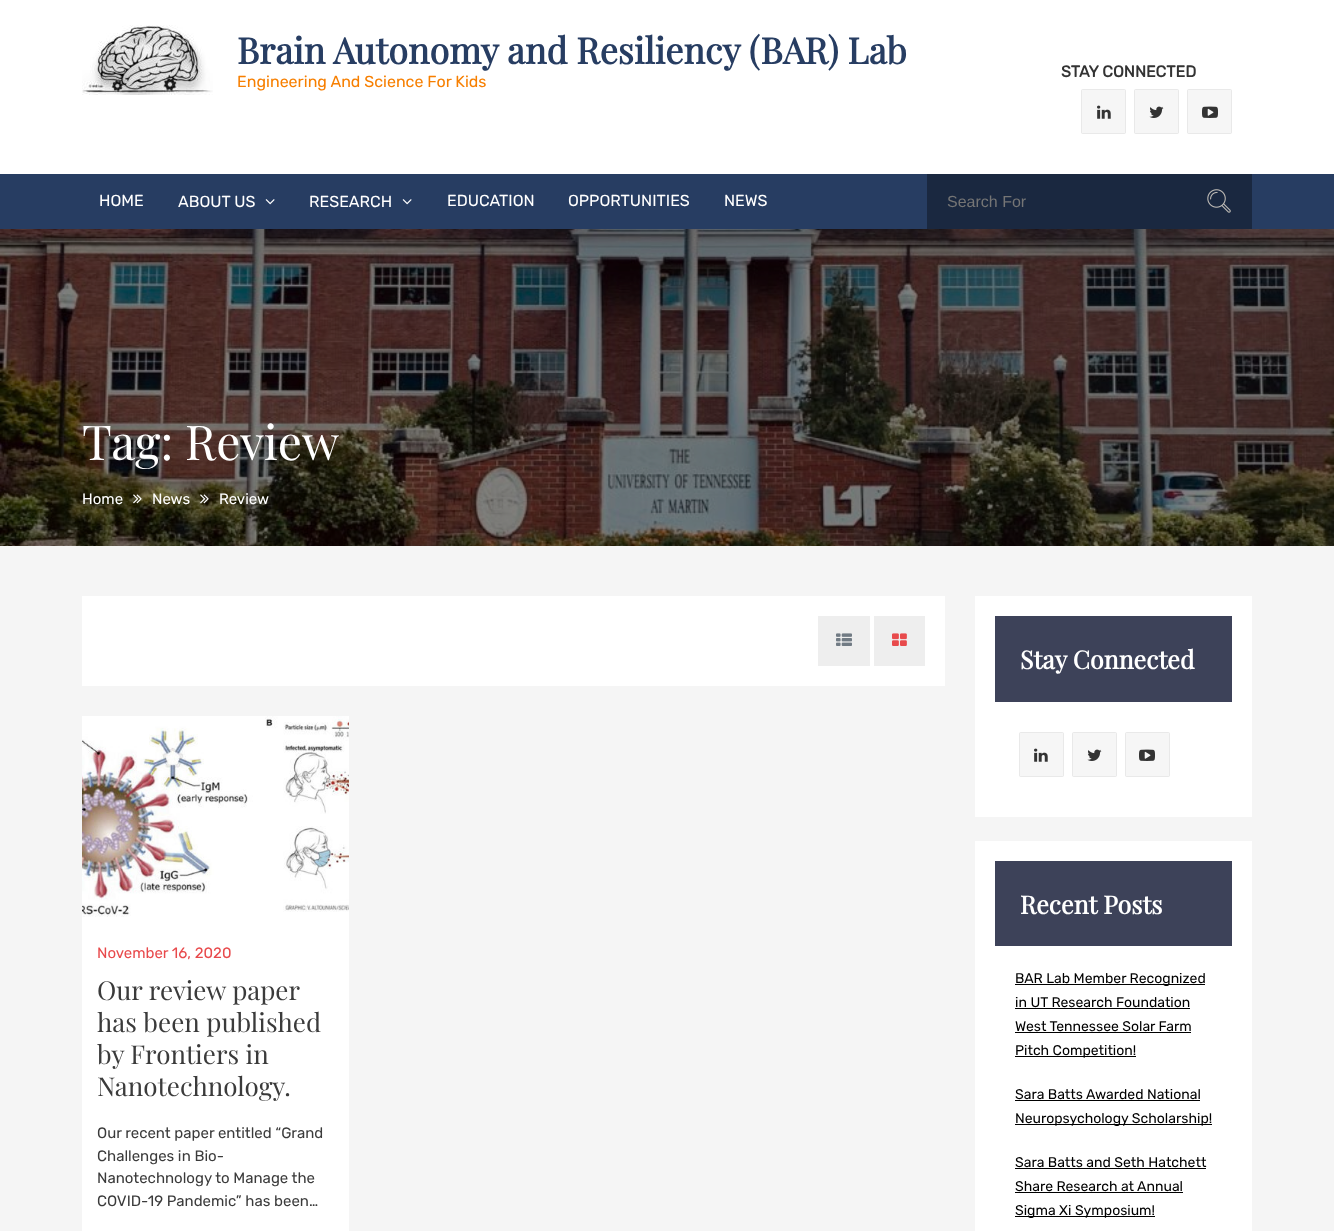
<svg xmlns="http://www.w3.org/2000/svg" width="1334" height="1231">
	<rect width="100%" height="100%" fill="#F5F5F5" />
	<rect x="0" y="0" width="1334" height="174" fill="#FFFFFF" />
	<image x="82" y="25" width="131" height="70" href="assets/img1.png" />
	<text x="237" y="64" font-family="Playfair Display" font-size="36" font-weight="700" fill="#273D62">Brain Autonomy and Resiliency (BAR) Lab</text>
	<text x="237" y="87" font-family="Rubik" font-size="16" font-weight="300" fill="#F77F00">Engineering And Science For Kids</text>
	<text x="1061" y="77" font-family="Rubik" font-size="16" font-weight="700" fill="#333333">STAY CONNECTED</text>
	<rect x="1081" y="89" width="45" height="45" rx="2" fill="#F6F6F6" />
	<path d="M1083 89C1082 89 1081 90 1081 91V132C1081 133 1082 134 1083 134H1124C1125 134 1126 133 1126 132V91C1126 90 1125 89 1124 89ZM1082 90V133H1125V90Z" fill="#E9E9E9" fill-rule="evenodd" />
	<image x="1097" y="105" width="14" height="14" href="assets/img2.png" />
	<rect x="1134" y="89" width="45" height="45" rx="2" fill="#F6F6F6" />
	<path d="M1136 89C1135 89 1134 90 1134 91V132C1134 133 1135 134 1136 134H1177C1178 134 1179 133 1179 132V91C1179 90 1178 89 1177 89ZM1135 90V133H1178V90Z" fill="#E9E9E9" fill-rule="evenodd" />
	<image x="1149" y="106" width="15" height="12" href="assets/img3.png" />
	<rect x="1187" y="89" width="45" height="45" rx="2" fill="#F6F6F6" />
	<path d="M1189 89C1188 89 1187 90 1187 91V132C1187 133 1188 134 1189 134H1230C1231 134 1232 133 1232 132V91C1232 90 1231 89 1230 89ZM1188 90V133H1231V90Z" fill="#E9E9E9" fill-rule="evenodd" />
	<image x="1202" y="106" width="16" height="12" href="assets/img4.png" />
	<rect x="0" y="174" width="1334" height="55" fill="#273D62" />
	<g font-family="Rubik" font-size="16" font-weight="300" fill="#FFFFFF">
		<text x="99" y="206">HOME</text>
		<text x="178" y="207">ABOUT US</text>
	</g>
	<image x="265" y="199" width="10" height="6" href="assets/img5.png" />
	<text x="309" y="207" font-family="Rubik" font-size="16" font-weight="300" fill="#FFFFFF">RESEARCH</text>
	<image x="402" y="199" width="10" height="6" href="assets/img5.png" />
	<g font-family="Rubik" font-size="16" font-weight="300" fill="#FFFFFF">
		<text x="447" y="206">EDUCATION</text>
		<text x="568" y="206">OPPORTUNITIES</text>
		<text x="724" y="206">NEWS</text>
	</g>
	<rect x="927" y="174" width="325" height="55" fill="#1A2840" />
	<text x="947" y="207" font-family="Liberation Sans" font-size="16" fill="#757575">Search For</text>
	<image x="1207" y="189" width="24" height="24" href="assets/img6.png" />
	<image x="0" y="229" width="1334" height="317" href="assets/img7.png" />
	<text x="82" y="460" font-family="Playfair Display" font-size="48" fill="#FFFFFF">Tag: Review</text>
	<text x="82" y="504" font-family="Rubik" font-size="15" font-weight="300" fill="#FFFFFF">Home</text>
	<image x="133" y="494" width="9" height="10" href="assets/img8.png" />
	<text x="152" y="504" font-family="Rubik" font-size="15" font-weight="300" fill="#FFFFFF">News</text>
	<image x="200" y="494" width="9" height="10" href="assets/img9.png" />
	<text x="219" y="504" font-family="Rubik" font-size="15" font-weight="300" fill="#FFFFFF">Review</text>
	<rect x="82" y="596" width="863" height="90" fill="#FFFFFF" />
	<rect x="818" y="616" width="52" height="50" fill="#EEEEEE" />
	<image x="836" y="633" width="16" height="13" href="assets/img10.png" />
	<rect x="874" y="616" width="51" height="50" fill="#EEEEEE" />
	<image x="892" y="633" width="15" height="13" href="assets/img11.png" />
	<rect x="82" y="917" width="267" height="314" fill="#FFFFFF" />
	<image x="82" y="716" width="267" height="201" href="assets/img12.png" />
	<text x="97" y="958" font-family="Rubik" font-size="15" font-weight="300" fill="#E84A4C">November 16, 2020</text>
	<g font-family="Playfair Display" font-size="26" fill="#3B3B3B">
		<text x="97" y="1000">Our review paper</text>
		<text x="97" y="1032">has been published</text>
		<text x="97" y="1064">by Frontiers in</text>
		<text x="97" y="1096">Nanotechnology.</text>
	</g>
	<g font-family="Rubik" font-size="15" font-weight="300" fill="#3B3B3B">
		<text x="97" y="1138">Our recent paper entitled “Grand</text>
		<text x="97" y="1161">Challenges in Bio-</text>
		<text x="97" y="1183">Nanotechnology to Manage the</text>
		<text x="97" y="1206">COVID-19 Pandemic” has been…</text>
	</g>
	<rect x="975" y="596" width="277" height="221" fill="#FFFFFF" />
	<rect x="995" y="616" width="237" height="86" fill="#3D4259" />
	<text x="1020" y="669" font-family="Playfair Display" font-size="25" font-weight="700" fill="#FFFFFF">Stay Connected</text>
	<rect x="1019" y="732" width="45" height="45" rx="2" fill="#F6F6F6" />
	<path d="M1021 732C1020 732 1019 733 1019 734V775C1019 776 1020 777 1021 777H1062C1063 777 1064 776 1064 775V734C1064 733 1063 732 1062 732ZM1020 733V776H1063V733Z" fill="#E9E9E9" fill-rule="evenodd" />
	<image x="1034" y="748" width="14" height="14" href="assets/img2.png" />
	<rect x="1072" y="732" width="45" height="45" rx="2" fill="#F6F6F6" />
	<path d="M1074 732C1073 732 1072 733 1072 734V775C1072 776 1073 777 1074 777H1115C1116 777 1117 776 1117 775V734C1117 733 1116 732 1115 732ZM1073 733V776H1116V733Z" fill="#E9E9E9" fill-rule="evenodd" />
	<image x="1087" y="749" width="15" height="12" href="assets/img3.png" />
	<rect x="1125" y="732" width="45" height="45" rx="2" fill="#F6F6F6" />
	<path d="M1127 732C1126 732 1125 733 1125 734V775C1125 776 1126 777 1127 777H1168C1169 777 1170 776 1170 775V734C1170 733 1169 732 1168 732ZM1126 733V776H1169V733Z" fill="#E9E9E9" fill-rule="evenodd" />
	<image x="1139" y="749" width="16" height="12" href="assets/img4.png" />
	<rect x="975" y="841" width="277" height="390" fill="#FFFFFF" />
	<rect x="995" y="861" width="237" height="85" fill="#3D4259" />
	<text x="1020" y="914" font-family="Playfair Display" font-size="25" font-weight="700" fill="#FFFFFF">Recent Posts</text>
	<rect x="1015" y="984" width="190" height="1" fill="#000000" />
	<g font-family="Rubik" font-size="14" font-weight="300" fill="#000000">
		<text x="1015" y="983">BAR Lab Member Recognized</text>
		<text x="1015" y="1007">in UT Research Foundation</text>
	</g>
	<rect x="1015" y="1008" width="175" height="1" fill="#000000" />
	<text x="1015" y="1031" font-family="Rubik" font-size="14" font-weight="300" fill="#000000">West Tennessee Solar Farm</text>
	<rect x="1015" y="1032" width="176" height="1" fill="#000000" />
	<rect x="1015" y="1056" width="121" height="1" fill="#000000" />
	<g font-family="Rubik" font-size="14" font-weight="300" fill="#000000">
		<text x="1015" y="1055">Pitch Competition!</text>
		<text x="1015" y="1099">Sara Batts Awarded National</text>
	</g>
	<rect x="1015" y="1100" width="185" height="1" fill="#000000" />
	<rect x="1015" y="1124" width="197" height="1" fill="#000000" />
	<g font-family="Rubik" font-size="14" font-weight="300" fill="#000000">
		<text x="1015" y="1123">Neuropsychology Scholarship!</text>
		<text x="1015" y="1167">Sara Batts and Seth Hatchett</text>
	</g>
	<rect x="1015" y="1168" width="191" height="1" fill="#000000" />
	<text x="1015" y="1191" font-family="Rubik" font-size="14" font-weight="300" fill="#000000">Share Research at Annual</text>
	<rect x="1015" y="1192" width="168" height="1" fill="#000000" />
	<rect x="1015" y="1216" width="140" height="1" fill="#000000" />
	<text x="1015" y="1215" font-family="Rubik" font-size="14" font-weight="300" fill="#000000">Sigma Xi Symposium!</text>
</svg>
